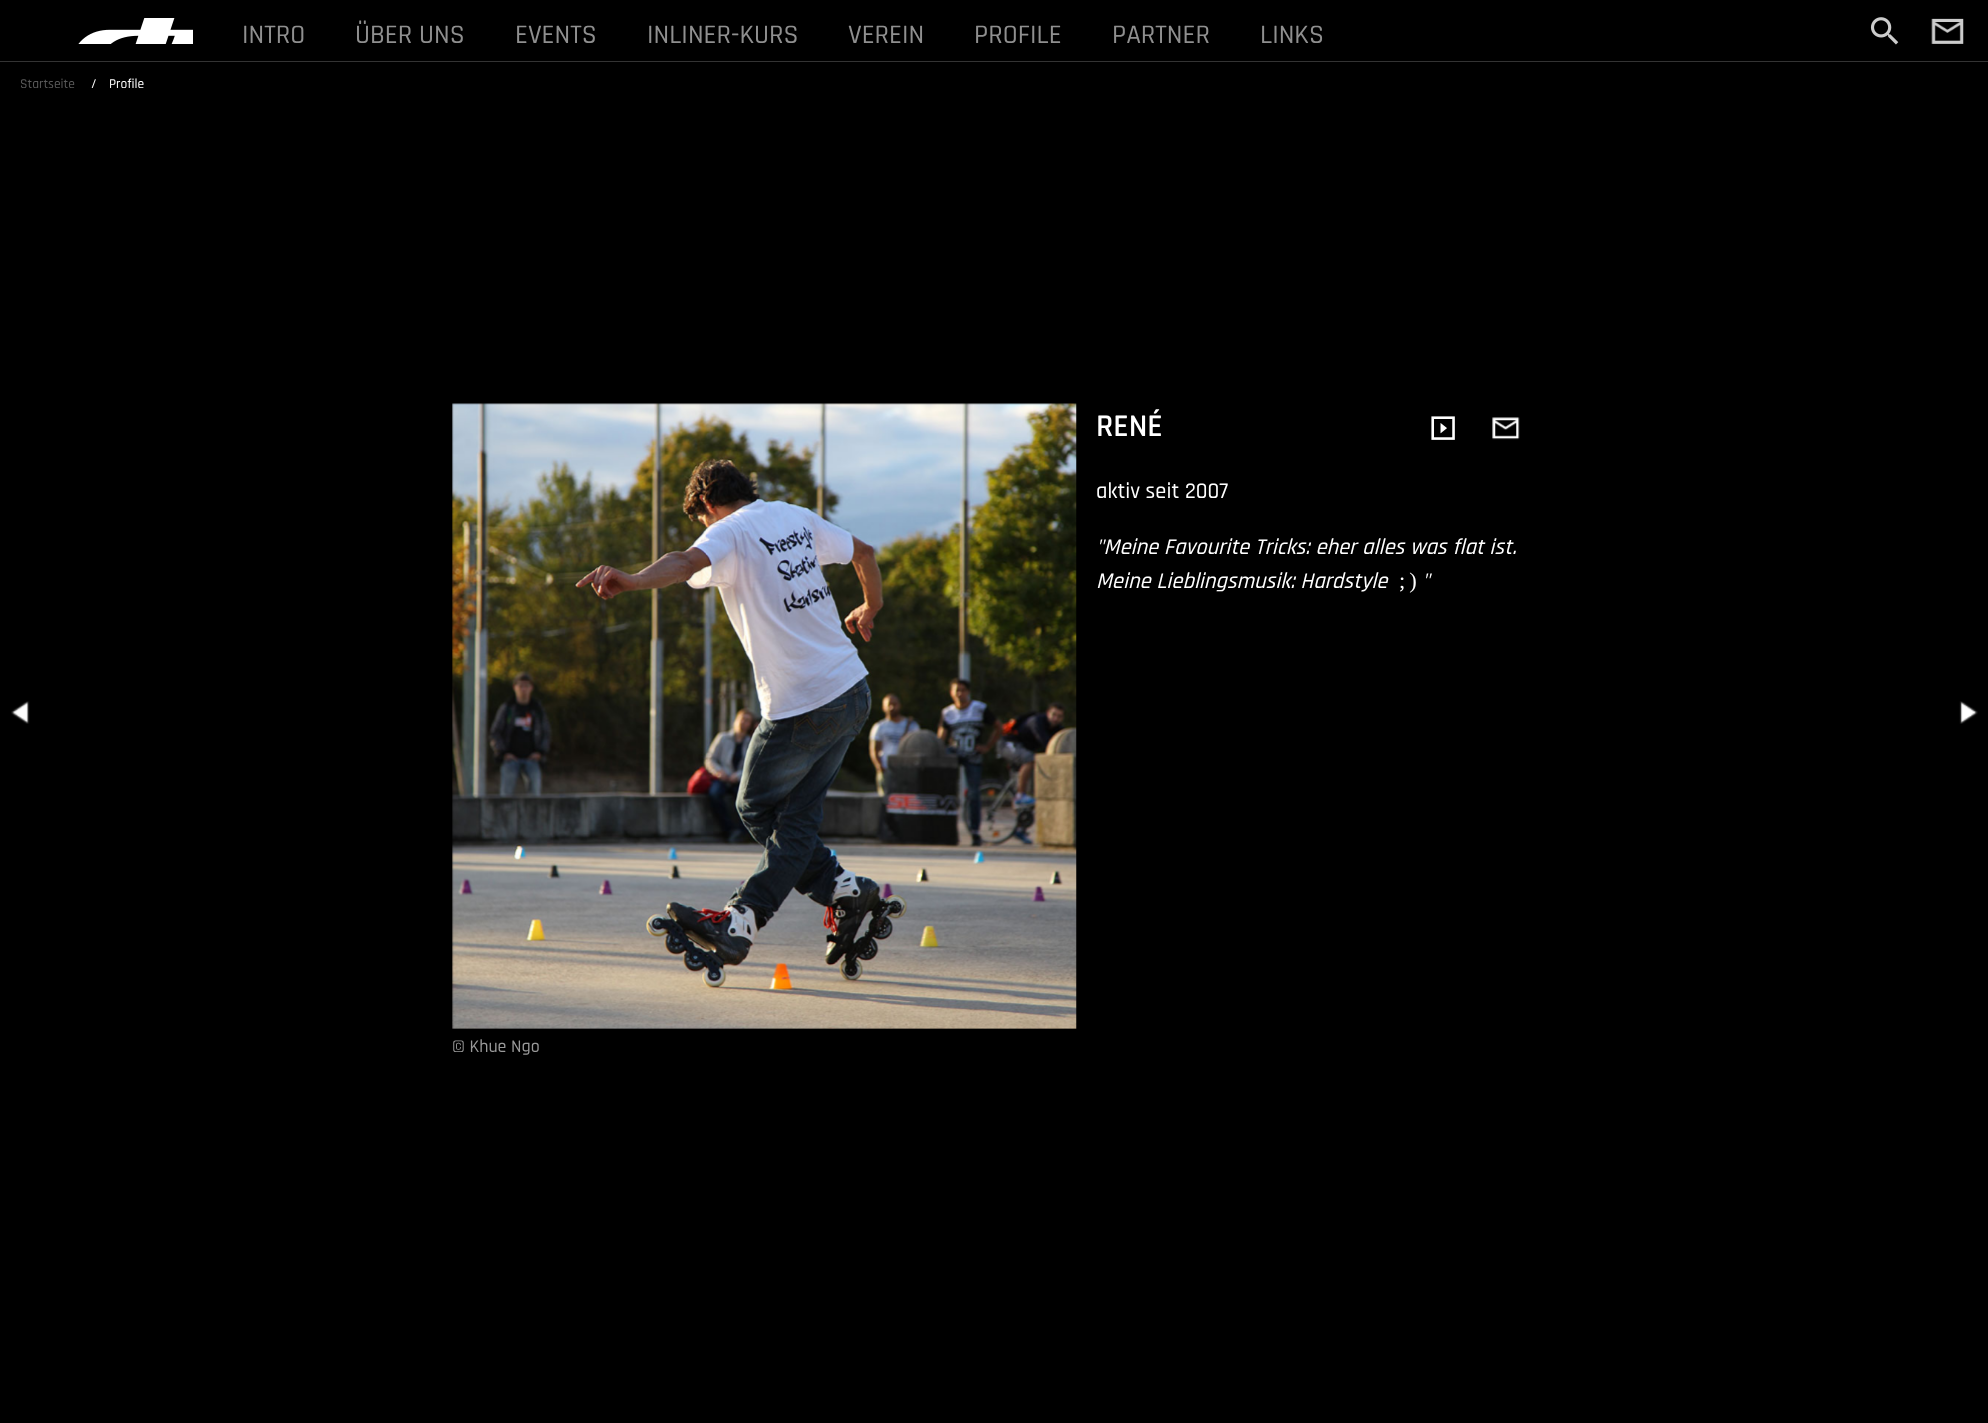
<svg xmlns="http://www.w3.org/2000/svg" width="1988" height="1423">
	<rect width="100%" height="100%" fill="#000000" />
	<rect x="0" y="61" width="1988" height="1" fill="#333333" />
	<image x="78" y="18" width="115" height="26" href="assets/img1.png" />
	<g font-family="Rajdhani" font-size="27" font-weight="500" fill="#8F8F8F">
		<text x="242" y="43">INTRO</text>
		<text x="355" y="43">ÜBER UNS</text>
		<text x="515" y="43">EVENTS</text>
		<text x="647" y="43">INLINER-KURS</text>
		<text x="848" y="43">VEREIN</text>
		<text x="974" y="43">PROFILE</text>
		<text x="1112" y="43">PARTNER</text>
		<text x="1260" y="43">LINKS</text>
	</g>
	<image x="1870" y="17" width="29" height="28" href="assets/img2.png" />
	<image x="1931" y="18" width="33" height="26" href="assets/img3.png" />
	<text x="20" y="88" font-family="Rajdhani" font-size="13.5" font-weight="500" fill="#5A5A5A">Startseite</text>
	<g font-family="Rajdhani" font-size="13.5" font-weight="500" fill="#FFFFFF">
		<text x="91" y="88">/</text>
		<text x="109" y="88">Profile</text>
	</g>
	<image x="11" y="701" width="19" height="23" href="assets/img4.png" />
	<text x="1096" y="436" font-family="Rajdhani" font-size="32" font-weight="600" fill="#FFFFFF">RENÉ</text>
	<image x="1431" y="416" width="24" height="24" href="assets/img5.png" />
	<image x="1492" y="417" width="28" height="23" href="assets/img6.png" />
	<text x="1096" y="498" font-family="Rajdhani" font-size="22.5" font-weight="500" fill="#FFFFFF">aktiv seit 2007</text>
	<g font-family="Rajdhani" font-size="22.5" font-weight="500" font-style="italic" fill="#FFFFFF">
		<text x="1096" y="554">"Meine Favourite Tricks: eher alles was flat ist.</text>
		<text x="1096" y="588">Meine Lieblingsmusik: Hardstyle</text>
	</g>
	<text x="1399" y="588" font-family="Liberation Serif" font-size="22.5" letter-spacing="4" fill="#FFFFFF">;)</text>
	<text x="1422" y="588" font-family="Rajdhani" font-size="22.5" font-weight="500" font-style="italic" fill="#FFFFFF">"</text>
	<image x="452" y="403" width="625" height="626" href="assets/img7.png" />
	<text x="452" y="1052" font-family="Rajdhani" font-size="18" font-weight="500" fill="#999999">© Khue Ngo</text>
	<image x="1959" y="701" width="19" height="23" href="assets/img8.png" />
</svg>
